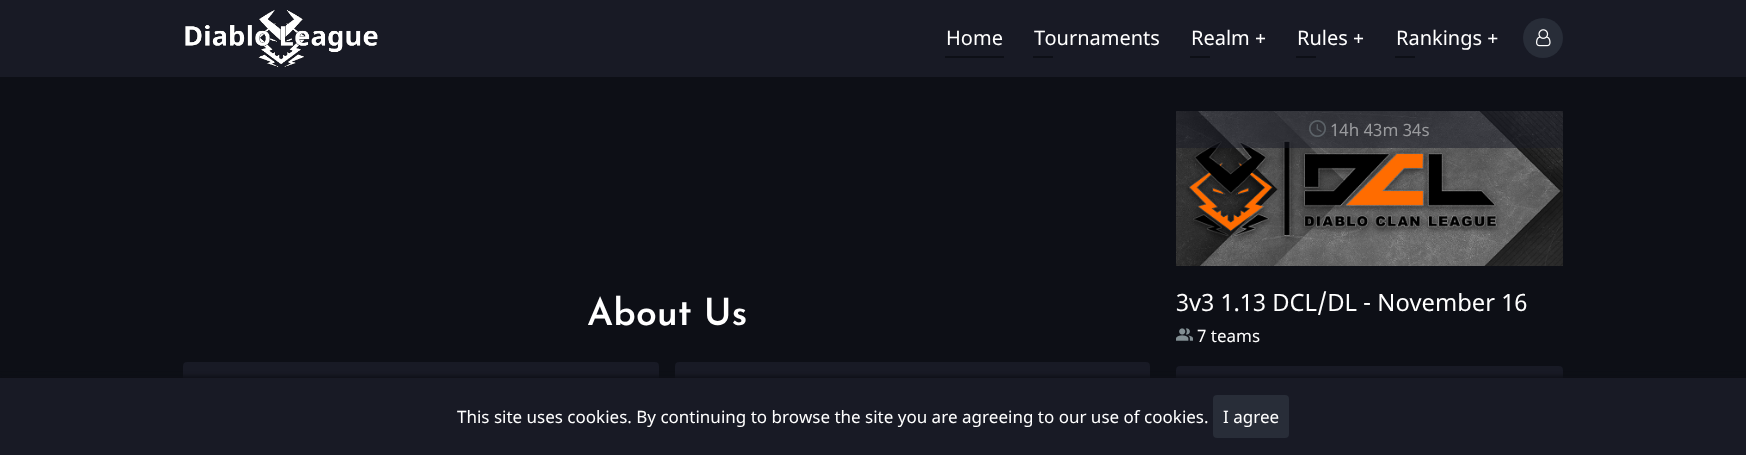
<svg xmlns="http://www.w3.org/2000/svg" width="1746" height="455">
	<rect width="100%" height="100%" fill="#0D0F16" />
	<rect x="0" y="0" width="1746" height="77" fill="#181A25" />
	<image x="185" y="9" width="193" height="59" href="assets/img1.png" />
	<text x="946" y="45" font-family="Noto Sans" font-size="20" fill="#FFFFFF">Home</text>
	<rect x="945" y="56" width="59" height="2" fill="#0D0F16" />
	<text x="1034" y="45" font-family="Noto Sans" font-size="20" fill="#FFFFFF">Tournaments</text>
	<rect x="1033" y="56" width="20" height="2" fill="#0D0F16" />
	<text x="1191" y="45" font-family="Noto Sans" font-size="20" fill="#FFFFFF">Realm +</text>
	<rect x="1190" y="56" width="20" height="2" fill="#0D0F16" />
	<text x="1297" y="45" font-family="Noto Sans" font-size="20" fill="#FFFFFF">Rules +</text>
	<rect x="1296" y="56" width="20" height="2" fill="#0D0F16" />
	<text x="1396" y="45" font-family="Noto Sans" font-size="20" fill="#FFFFFF">Rankings +</text>
	<rect x="1395" y="56" width="20" height="2" fill="#0D0F16" />
	<circle cx="1543" cy="38" r="20" fill="#282D38" />
	<image x="1536" y="29" width="15" height="18" href="assets/img2.png" />
	<text x="587" y="325" font-family="Josefin Sans" font-size="37.5" font-weight="600" fill="#FFFFFF">About Us</text>
	<rect x="183" y="362" width="476" height="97" rx="4" fill="#181A25" />
	<rect x="675" y="362" width="475" height="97" rx="4" fill="#181A25" />
	<image x="1176" y="111" width="387" height="155" href="assets/img3.png" />
	<rect x="1176" y="111" width="387" height="37" fill="#181A25" fill-opacity="0.5" />
	<image x="1309" y="120" width="17" height="17" href="assets/img4.png" />
	<text x="1330" y="136" font-family="Noto Sans" font-size="17" fill="#9A9B9E">14h 43m 34s</text>
	<text x="1176" y="311" font-family="Noto Sans" font-size="23.75" fill="#FFFFFF">3v3 1.13 DCL/DL - November 16</text>
	<image x="1176" y="328" width="17" height="13" href="assets/img5.png" />
	<text x="1197" y="342" font-family="Noto Sans" font-size="17" fill="#FFFFFF">7 teams</text>
	<rect x="1176" y="366" width="387" height="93" rx="4" fill="#181A25" />
	<rect x="-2" y="376" width="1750" height="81" fill="#0D0F16" filter="blur(2px)" />
	<rect x="0" y="378" width="1746" height="77" fill="#181A25" />
	<text x="457" y="423" font-family="Noto Sans" font-size="17" fill="#FFFFFF">This site uses cookies. By continuing to browse the site you are agreeing to our use of cookies.</text>
	<rect x="1213" y="395" width="76" height="43" rx="4" fill="#282D38" />
	<text x="1223" y="423" font-family="Noto Sans" font-size="17" fill="#FFFFFF">I agree</text>
</svg>
